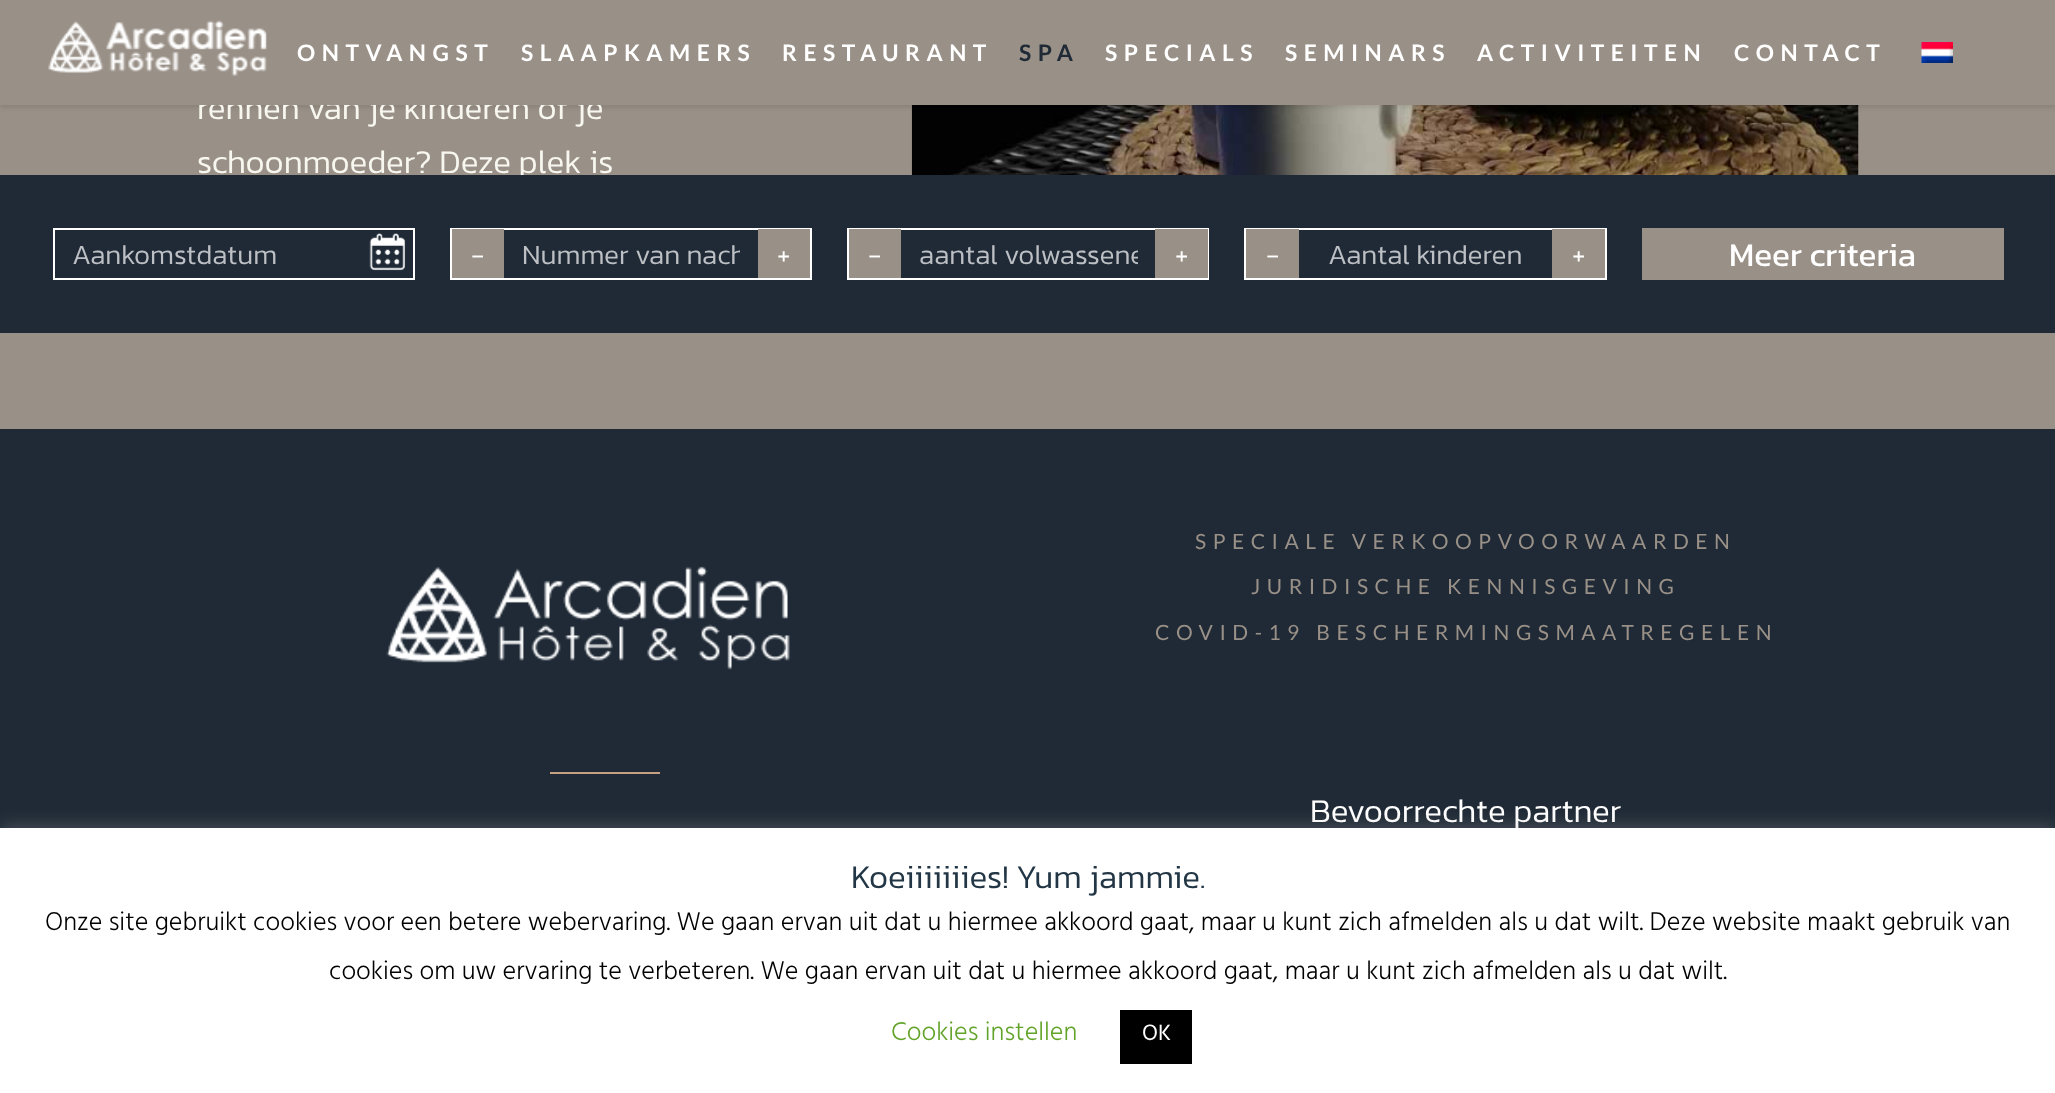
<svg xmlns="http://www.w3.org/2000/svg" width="2055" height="1093">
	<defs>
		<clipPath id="clip1"><rect x="522" y="233" width="218" height="42" /></clipPath>
		<clipPath id="clip2"><rect x="919" y="233" width="219" height="42" /></clipPath>
	</defs>
	<rect width="100%" height="100%" fill="#999087" />
	<image x="911" y="105" width="948" height="70" href="assets/img3.png" />
	<rect x="0" y="2" width="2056" height="105" fill="#000000" fill-opacity="0.11" filter="blur(2.5px)" />
	<text x="197" y="119" font-family="Kanit" font-size="33.25" font-weight="300" fill="#F7F7F0">rennen van je kinderen of je</text>
	<rect x="0" y="0" width="2055" height="105" fill="#999087" />
	<image x="48" y="20" width="219" height="56" href="assets/img1.png" />
	<g font-family="Lato" font-size="22.75" font-weight="700" letter-spacing="6.5" fill="#FFFFFF">
		<text x="297" y="61">ONTVANGST</text>
		<text x="521" y="61">SLAAPKAMERS</text>
		<text x="782" y="61">RESTAURANT</text>
	</g>
	<text x="1019" y="61" font-family="Lato" font-size="22.75" font-weight="700" letter-spacing="6.5" fill="#1F2A36">SPA</text>
	<g font-family="Lato" font-size="22.75" font-weight="700" letter-spacing="6.5" fill="#FFFFFF">
		<text x="1105" y="61">SPECIALS</text>
		<text x="1285" y="61">SEMINARS</text>
		<text x="1477" y="61">ACTIVITEITEN</text>
		<text x="1734" y="61">CONTACT</text>
	</g>
	<image x="1921" y="42" width="32" height="21" href="assets/img2.png" />
	<text x="197" y="173" font-family="Kanit" font-size="33.25" font-weight="300" fill="#F7F7F0">schoonmoeder? Deze plek is</text>
	<rect x="0" y="175" width="2055" height="158" fill="#1F2A36" />
	<rect x="54" y="229" width="360" height="50" fill="none" stroke="#FFFFFF" stroke-width="2" />
	<text x="72" y="264" font-family="Kanit" font-size="28" font-weight="300" fill="#BCBFC3">Aankomstdatum</text>
	<image x="369" y="233" width="37" height="38" href="assets/img4.png" />
	<rect x="451" y="229" width="360" height="50" fill="none" stroke="#FFFFFF" stroke-width="2" />
	<rect x="452" y="229" width="52" height="49" fill="#999087" />
	<text x="471" y="264" font-family="Kanit" font-size="28" font-weight="300" fill="#FFFFFF">-</text>
	<g clip-path="url(#clip1)">
		<text x="522" y="264" font-family="Kanit" font-size="28" font-weight="300" fill="#BCBFC3">Nummer van nach</text>
	</g>
	<rect x="758" y="229" width="52" height="49" fill="#999087" />
	<text x="777" y="264" font-family="Kanit" font-size="28" font-weight="300" fill="#FFFFFF">+</text>
	<rect x="848" y="229" width="360" height="50" fill="none" stroke="#FFFFFF" stroke-width="2" />
	<rect x="849" y="229" width="52" height="49" fill="#999087" />
	<text x="868" y="264" font-family="Kanit" font-size="28" font-weight="300" fill="#FFFFFF">-</text>
	<g clip-path="url(#clip2)">
		<text x="919" y="264" font-family="Kanit" font-size="28" font-weight="300" fill="#BCBFC3">aantal volwassene</text>
	</g>
	<rect x="1155" y="229" width="53" height="49" fill="#999087" />
	<text x="1175" y="264" font-family="Kanit" font-size="28" font-weight="300" fill="#FFFFFF">+</text>
	<rect x="1245" y="229" width="361" height="50" fill="none" stroke="#FFFFFF" stroke-width="2" />
	<rect x="1246" y="229" width="53" height="49" fill="#999087" />
	<text x="1266" y="264" font-family="Kanit" font-size="28" font-weight="300" fill="#FFFFFF">-</text>
	<text x="1328" y="264" font-family="Kanit" font-size="28" font-weight="300" fill="#BCBFC3">Aantal kinderen</text>
	<rect x="1552" y="229" width="53" height="49" fill="#999087" />
	<text x="1572" y="264" font-family="Kanit" font-size="28" font-weight="300" fill="#FFFFFF">+</text>
	<rect x="1642" y="228" width="362" height="52" fill="#999087" />
	<text x="1729" y="266" font-family="Kanit" font-size="33.25" fill="#FFFFFF">Meer criteria</text>
	<rect x="0" y="429" width="2055" height="399" fill="#1F2A36" />
	<image x="386" y="566" width="404" height="104" href="assets/img5.png" />
	<rect x="550" y="772" width="110" height="2" fill="#C7A082" />
	<g font-family="Lato" font-size="21" letter-spacing="6.5" fill="#999087">
		<text x="1195" y="549">SPECIALE VERKOOPVOORWAARDEN</text>
		<text x="1251" y="594">JURIDISCHE KENNISGEVING</text>
		<text x="1155" y="640">COVID-19 BESCHERMINGSMAATREGELEN</text>
	</g>
	<text x="1310" y="822" font-family="Kanit" font-size="33.25" font-weight="300" fill="#FFFFFF">Bevoorrechte partner</text>
	<rect x="0" y="826" width="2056" height="266" fill="#ACABAB" fill-opacity="0.3" filter="blur(9px)" />
	<rect x="0" y="828" width="2055" height="265" fill="#FFFFFF" />
	<text x="851" y="888" font-family="Kanit" font-size="33.25" font-weight="300" fill="#223645">Koeiiiiiiies! Yum jammie.</text>
	<g font-family="Hind Guntur" font-size="26.25" font-weight="300" fill="#000000">
		<text x="45" y="930">Onze site gebruikt cookies voor een betere webervaring. We gaan ervan uit dat u hiermee akkoord gaat, maar u kunt zich afmelden als u dat wilt. Deze website maakt gebruik van</text>
		<text x="329" y="979">cookies om uw ervaring te verbeteren. We gaan ervan uit dat u hiermee akkoord gaat, maar u kunt zich afmelden als u dat wilt.</text>
	</g>
	<text x="891" y="1040" font-family="Hind Guntur" font-size="26.25" font-weight="300" fill="#62A329">Cookies instellen</text>
	<rect x="1120" y="1010" width="72" height="54" fill="#000000" />
	<text x="1142" y="1040" font-family="Hind Guntur" font-size="22.75" fill="#FFFFFF">OK</text>
</svg>
